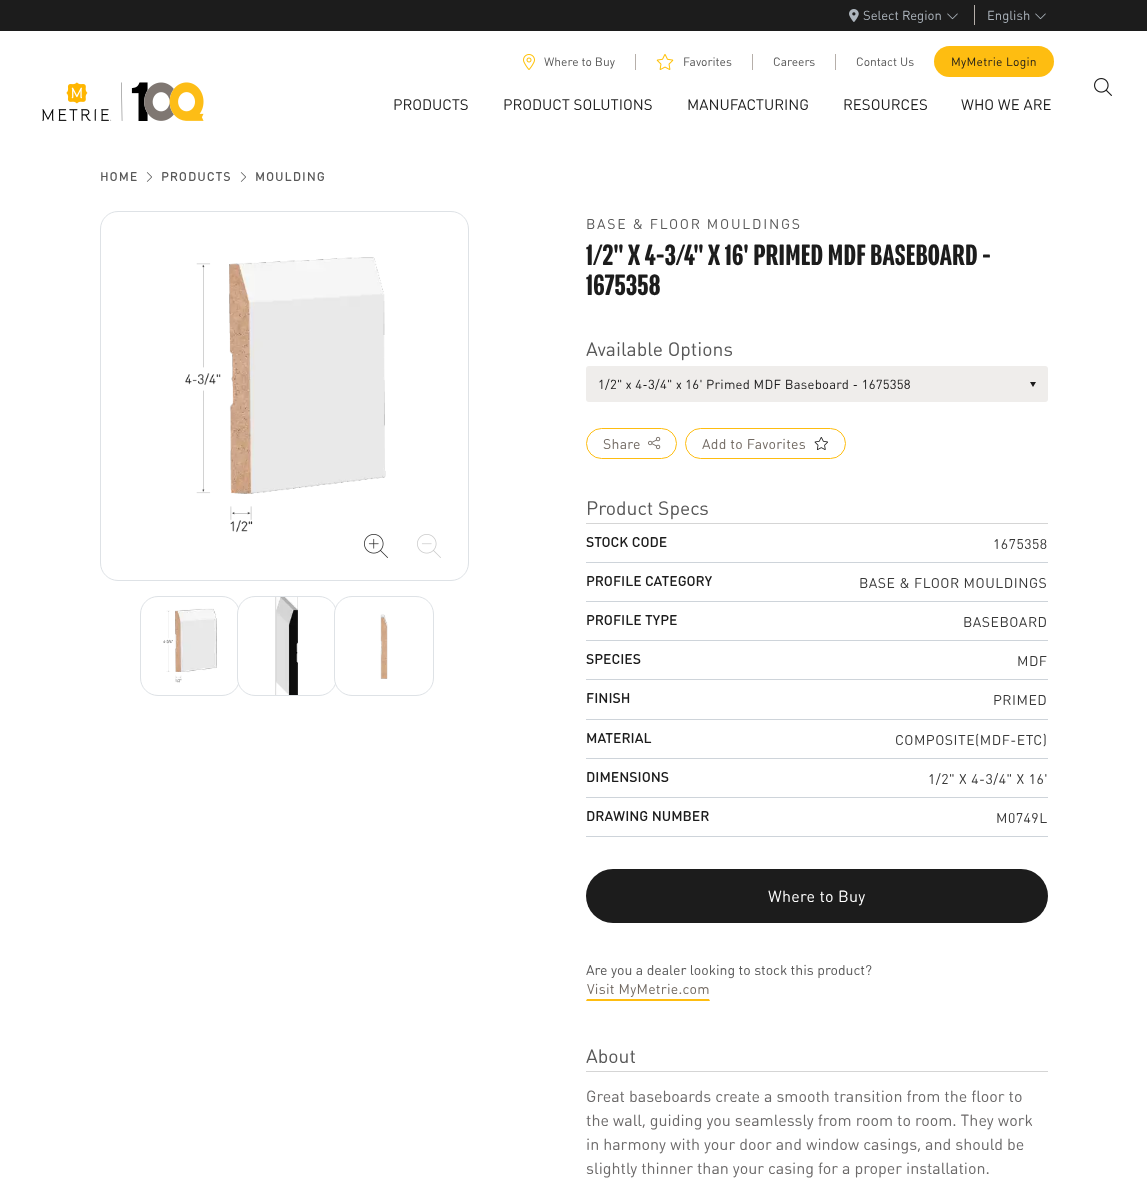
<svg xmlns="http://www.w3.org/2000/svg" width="1147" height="1190">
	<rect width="100%" height="100%" fill="#FFFFFF" />
	<rect x="0" y="0" width="1147" height="31" fill="#1C1C1C" />
	<rect x="974" y="5" width="1" height="20" fill="#B6AFAA" />
	<image x="849" y="9" width="10" height="13" href="assets/img1.png" />
	<text x="863" y="20" font-family="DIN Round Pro" font-size="13" fill="#ADB5BD">Select Region</text>
	<image x="947" y="13" width="11" height="7" href="assets/img2.png" />
	<text x="987" y="20" font-family="DIN Round Pro" font-size="13" fill="#ADB5BD">English</text>
	<image x="1035" y="13" width="11" height="7" href="assets/img2.png" />
	<image x="42" y="82" width="162" height="39" href="assets/img3.png" />
	<rect x="635" y="54" width="1" height="16" fill="#B6AFAA" />
	<image x="523" y="54" width="12" height="16" href="assets/img4.png" />
	<text x="544" y="66" font-family="DIN Round Pro" font-size="12" fill="#585858">Where to Buy</text>
	<rect x="752" y="54" width="1" height="16" fill="#B6AFAA" />
	<image x="656" y="54" width="18" height="16" href="assets/img5.png" />
	<text x="683" y="66" font-family="DIN Round Pro" font-size="12" fill="#585858">Favorites</text>
	<rect x="835" y="54" width="1" height="16" fill="#B6AFAA" />
	<g font-family="DIN Round Pro" font-size="12" fill="#585858">
		<text x="773" y="66">Careers</text>
		<text x="856" y="66">Contact Us</text>
	</g>
	<rect x="934" y="46" width="120" height="31" rx="15.5" fill="#FEBD11" />
	<text x="951" y="66" font-family="DIN Round Pro" font-size="12" letter-spacing="0.25" fill="#1C1C1C">MyMetrie Login</text>
	<g font-family="DIN Round Pro" font-size="15" fill="#1C1C1C">
		<text x="393" y="110">PRODUCTS</text>
		<text x="503" y="110">PRODUCT SOLUTIONS</text>
		<text x="687" y="110">MANUFACTURING</text>
		<text x="843" y="110">RESOURCES</text>
		<text x="961" y="110">WHO WE ARE</text>
	</g>
	<image x="1094" y="78" width="18" height="18" href="assets/img6.png" />
	<text x="100" y="181" font-family="DIN Round Pro" font-size="12" font-weight="700" letter-spacing="1.25" fill="#585858">HOME</text>
	<image x="146" y="172" width="6" height="10" href="assets/img7.png" />
	<text x="161" y="181" font-family="DIN Round Pro" font-size="12" font-weight="700" letter-spacing="1.25" fill="#585858">PRODUCTS</text>
	<image x="240" y="172" width="6" height="10" href="assets/img7.png" />
	<text x="255" y="181" font-family="DIN Round Pro" font-size="12" font-weight="700" letter-spacing="1.25" fill="#585858">MOULDING</text>
	<rect x="100.5" y="211.5" width="368" height="369" rx="17.5" fill="none" stroke="#DEE2E6" />
	<image x="185" y="257" width="201" height="276" href="assets/img8.png" />
	<image x="364" y="534" width="24" height="24" href="assets/img9.png" />
	<image x="417" y="534" width="24" height="24" href="assets/img10.png" />
	<rect x="140.5" y="596.5" width="99" height="99" rx="17.5" fill="none" stroke="#DEE2E6" />
	<image x="163" y="608" width="54" height="75" href="assets/img11.png" />
	<rect x="237.5" y="596.5" width="99" height="99" rx="17.5" fill="#FFFFFF" stroke="#DEE2E6" />
	<image x="275" y="597" width="23" height="98" href="assets/img12.png" />
	<rect x="334.5" y="596.5" width="99" height="99" rx="17.5" fill="#FFFFFF" stroke="#DEE2E6" />
	<image x="380" y="614" width="8" height="65" href="assets/img13.png" />
	<text x="586" y="229" font-family="DIN Round Pro" font-size="14" letter-spacing="1.75" fill="#585858">BASE &amp; FLOOR MOULDINGS</text>
	<g font-family="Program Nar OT" font-size="32" font-weight="500" letter-spacing="0.25" fill="#1C1C1C">
		<text x="586" y="265">1/2" X 4-3/4" X 16' PRIMED MDF BASEBOARD -</text>
		<text x="586" y="295">1675358</text>
	</g>
	<text x="586" y="356" font-family="DIN Round Pro" font-size="19.25" fill="#585858">Available Options</text>
	<rect x="586" y="366" width="462" height="36" rx="3" fill="#EFEDEB" />
	<text x="598" y="389" font-family="DIN Round Pro" font-size="13" letter-spacing="0.25" fill="#1C1C1C">1/2" x 4-3/4" x 16' Primed MDF Baseboard - 1675358</text>
	<path d="M1030 382H1036L1033 387Z" fill="#1C1C1C" />
	<rect x="586.5" y="428.5" width="90" height="30" rx="15" fill="none" stroke="#FEBD11" />
	<text x="603" y="449" font-family="DIN Round Pro" font-size="14" letter-spacing="0.25" fill="#736B64">Share</text>
	<image x="648" y="436" width="13" height="14" href="assets/img14.png" />
	<rect x="685.5" y="428.5" width="160" height="30" rx="15" fill="none" stroke="#FEBD11" />
	<text x="702" y="449" font-family="DIN Round Pro" font-size="14" letter-spacing="0.25" fill="#736B64">Add to Favorites</text>
	<image x="814" y="437" width="14" height="13" href="assets/img15.png" />
	<text x="586" y="515" font-family="DIN Round Pro" font-size="19.25" fill="#585858">Product Specs</text>
	<rect x="586" y="523" width="462" height="1" fill="#D5D5D5" />
	<rect x="586" y="562" width="462" height="1" fill="#CED4DA" />
	<text x="586" y="547" font-family="DIN Round Pro" font-size="14" font-weight="500" fill="#1C1C1C">STOCK CODE</text>
	<text x="993" y="549" font-family="DIN Round Pro" font-size="14" letter-spacing="0.5" fill="#383838">1675358</text>
	<rect x="586" y="601" width="462" height="1" fill="#CED4DA" />
	<text x="586" y="586" font-family="DIN Round Pro" font-size="14" font-weight="500" fill="#1C1C1C">PROFILE CATEGORY</text>
	<text x="859" y="588" font-family="DIN Round Pro" font-size="14" letter-spacing="0.5" fill="#383838">BASE &amp; FLOOR MOULDINGS</text>
	<rect x="586" y="640" width="462" height="1" fill="#CED4DA" />
	<text x="586" y="625" font-family="DIN Round Pro" font-size="14" font-weight="500" fill="#1C1C1C">PROFILE TYPE</text>
	<text x="963" y="627" font-family="DIN Round Pro" font-size="14" letter-spacing="0.5" fill="#383838">BASEBOARD</text>
	<rect x="586" y="679" width="462" height="1" fill="#CED4DA" />
	<text x="586" y="664" font-family="DIN Round Pro" font-size="14" font-weight="500" fill="#1C1C1C">SPECIES</text>
	<text x="1017" y="666" font-family="DIN Round Pro" font-size="14" letter-spacing="0.5" fill="#383838">MDF</text>
	<rect x="586" y="719" width="462" height="1" fill="#CED4DA" />
	<text x="586" y="703" font-family="DIN Round Pro" font-size="14" font-weight="500" fill="#1C1C1C">FINISH</text>
	<text x="993" y="705" font-family="DIN Round Pro" font-size="14" letter-spacing="0.5" fill="#383838">PRIMED</text>
	<rect x="586" y="758" width="462" height="1" fill="#CED4DA" />
	<text x="586" y="743" font-family="DIN Round Pro" font-size="14" font-weight="500" fill="#1C1C1C">MATERIAL</text>
	<text x="895" y="745" font-family="DIN Round Pro" font-size="14" letter-spacing="0.5" fill="#383838">COMPOSITE(MDF-ETC)</text>
	<rect x="586" y="797" width="462" height="1" fill="#CED4DA" />
	<text x="586" y="782" font-family="DIN Round Pro" font-size="14" font-weight="500" fill="#1C1C1C">DIMENSIONS</text>
	<text x="928" y="784" font-family="DIN Round Pro" font-size="14" letter-spacing="0.5" fill="#383838">1/2" X 4-3/4" X 16'</text>
	<rect x="586" y="836" width="462" height="1" fill="#CED4DA" />
	<text x="586" y="821" font-family="DIN Round Pro" font-size="14" font-weight="500" fill="#1C1C1C">DRAWING NUMBER</text>
	<text x="996" y="823" font-family="DIN Round Pro" font-size="14" letter-spacing="0.5" fill="#383838">M0749L</text>
	<rect x="586" y="869" width="462" height="54" rx="27" fill="#1C1C1C" />
	<text x="768" y="902" font-family="DIN Round Pro" font-size="16" letter-spacing="0.25" fill="#FFFFFF">Where to Buy</text>
	<text x="586" y="975" font-family="DIN Round Pro" font-size="14" fill="#585858">Are you a dealer looking to stock this product?</text>
	<path d="M710 1001H586L587 999H709Z" fill="#FEBD11" />
	<text x="587" y="994" font-family="DIN Round Pro" font-size="14" letter-spacing="0.25" fill="#736B64">Visit MyMetrie.com</text>
	<text x="586" y="1063" font-family="DIN Round Pro" font-size="19.25" fill="#585858">About</text>
	<rect x="586" y="1071" width="462" height="1" fill="#D5D5D5" />
	<g font-family="DIN Round Pro" font-size="16" fill="#6C6A6A">
		<text x="586" y="1102">Great baseboards create a smooth transition from the floor to</text>
		<text x="586" y="1126">the wall, guiding you seamlessly from room to room. They work</text>
		<text x="586" y="1150">in harmony with your door and window casings, and should be</text>
		<text x="586" y="1174">slightly thinner than your casing for a proper installation.</text>
	</g>
</svg>
